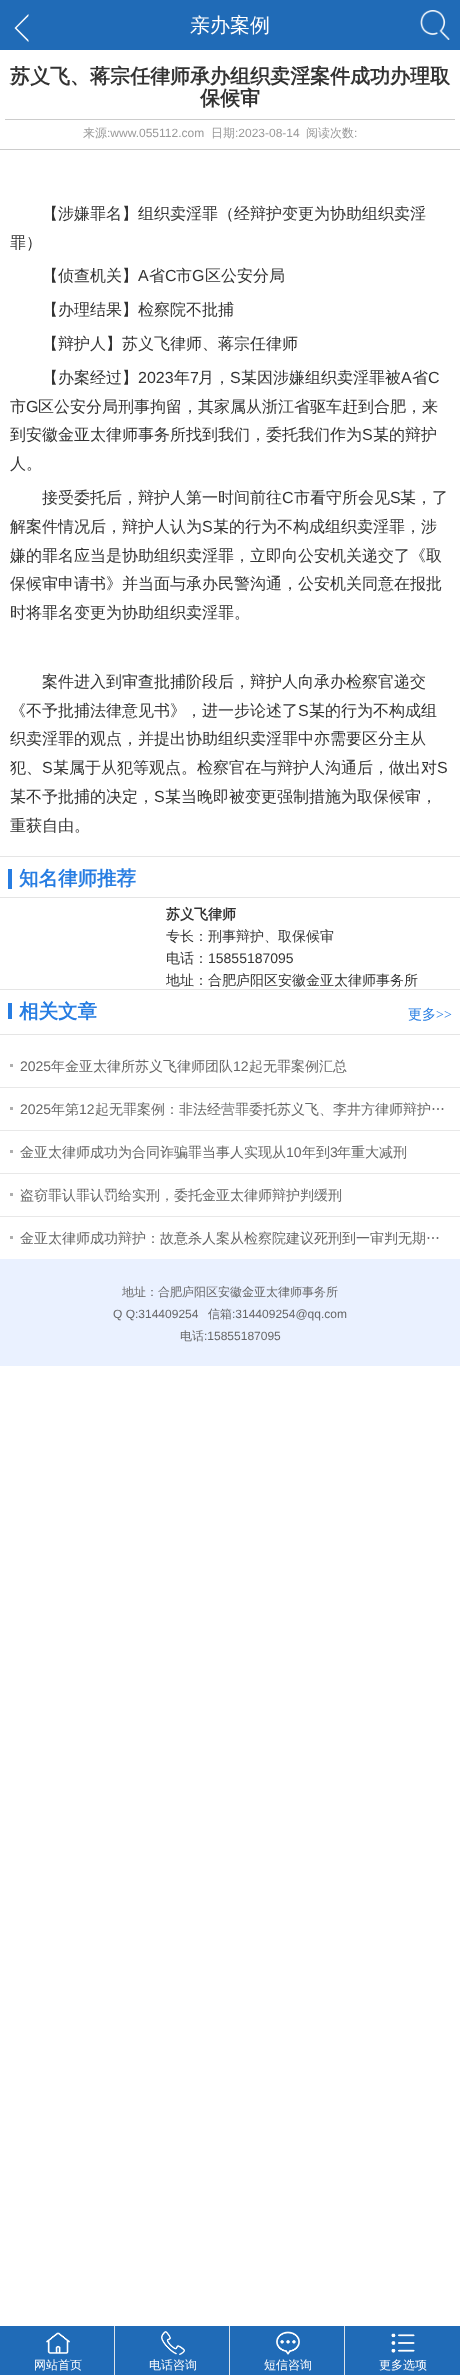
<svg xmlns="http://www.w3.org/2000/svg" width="460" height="2375">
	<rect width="100%" height="100%" fill="#FFFFFF" />
	<rect x="0" y="0" width="460" height="50" fill="#206BB7" />
	<image x="14" y="14" width="15" height="28" href="assets/img1.png" />
	<text x="190" y="32" font-family="WenQuanYi Zen Hei" font-size="20" font-weight="500" fill="#FFFFFF">亲办案例</text>
	<image x="420" y="10" width="30" height="30" href="assets/img2.png" />
	<rect x="0" y="149" width="460" height="1" fill="#CCCCCC" />
	<g font-family="WenQuanYi Zen Hei" font-size="20" font-weight="700" fill="#333333">
		<text x="10" y="83">苏义飞、蒋宗任律师承办组织卖淫案件成功办理取</text>
		<text x="200" y="105">保候审</text>
	</g>
	<rect x="5" y="119" width="450" height="1" fill="#CCCCCC" />
	<text x="83" y="137" font-family="WenQuanYi Zen Hei" font-size="12" font-weight="500" fill="#999999">来源</text>
	<text x="107" y="137" font-family="Liberation Sans" font-size="12" fill="#999999">:www.055112.com</text>
	<text x="211" y="137" font-family="WenQuanYi Zen Hei" font-size="12" font-weight="500" fill="#999999">日期</text>
	<text x="235" y="137" font-family="Liberation Sans" font-size="12" fill="#999999">:2023-08-14</text>
	<text x="306" y="137" font-family="WenQuanYi Zen Hei" font-size="12" font-weight="500" fill="#999999">阅读次数</text>
	<text x="354" y="137" font-family="Liberation Sans" font-size="12" fill="#999999">:</text>
	<g font-family="WenQuanYi Zen Hei" font-size="16" font-weight="500" fill="#333333">
		<text x="42" y="219">【涉嫌罪名】组织卖淫罪（经辩护变更为协助组织卖淫</text>
		<text x="10" y="248">罪）</text>
		<text x="42" y="281">【侦查机关】</text>
	</g>
	<text x="138" y="281" font-family="Liberation Sans" font-size="16" fill="#333333">A</text>
	<text x="149" y="281" font-family="WenQuanYi Zen Hei" font-size="16" font-weight="500" fill="#333333">省</text>
	<text x="165" y="281" font-family="Liberation Sans" font-size="16" fill="#333333">C</text>
	<text x="176" y="281" font-family="WenQuanYi Zen Hei" font-size="16" font-weight="500" fill="#333333">市</text>
	<text x="192" y="281" font-family="Liberation Sans" font-size="16" fill="#333333">G</text>
	<g font-family="WenQuanYi Zen Hei" font-size="16" font-weight="500" fill="#333333">
		<text x="205" y="281">区公安分局</text>
		<text x="42" y="315">【办理结果】检察院不批捕</text>
		<text x="42" y="349">【辩护人】苏义飞律师、蒋宗任律师</text>
		<text x="42" y="383">【办案经过】</text>
	</g>
	<text x="138" y="383" font-family="Liberation Sans" font-size="16" fill="#333333">2023</text>
	<text x="174" y="383" font-family="WenQuanYi Zen Hei" font-size="16" font-weight="500" fill="#333333">年</text>
	<text x="190" y="383" font-family="Liberation Sans" font-size="16" fill="#333333">7</text>
	<text x="198" y="383" font-family="WenQuanYi Zen Hei" font-size="16" font-weight="500" fill="#333333">月，</text>
	<text x="230" y="383" font-family="Liberation Sans" font-size="16" fill="#333333">S</text>
	<text x="241" y="383" font-family="WenQuanYi Zen Hei" font-size="16" font-weight="500" fill="#333333">某因涉嫌组织卖淫罪被</text>
	<text x="401" y="383" font-family="Liberation Sans" font-size="16" fill="#333333">A</text>
	<text x="412" y="383" font-family="WenQuanYi Zen Hei" font-size="16" font-weight="500" fill="#333333">省</text>
	<text x="428" y="383" font-family="Liberation Sans" font-size="16" fill="#333333">C</text>
	<text x="10" y="412" font-family="WenQuanYi Zen Hei" font-size="16" font-weight="500" fill="#333333">市</text>
	<text x="26" y="412" font-family="Liberation Sans" font-size="16" fill="#333333">G</text>
	<g font-family="WenQuanYi Zen Hei" font-size="16" font-weight="500" fill="#333333">
		<text x="38" y="412">区公安分局刑事拘留，其家属从浙江省驱车赶到合肥，来</text>
		<text x="10" y="440">到安徽金亚太律师事务所找到我们，委托我们作为</text>
	</g>
	<text x="362" y="440" font-family="Liberation Sans" font-size="16" fill="#333333">S</text>
	<g font-family="WenQuanYi Zen Hei" font-size="16" font-weight="500" fill="#333333">
		<text x="373" y="440">某的辩护</text>
		<text x="10" y="469">人。</text>
		<text x="42" y="503">接受委托后，辩护人第一时间前往</text>
	</g>
	<text x="282" y="503" font-family="Liberation Sans" font-size="16" fill="#333333">C</text>
	<text x="294" y="503" font-family="WenQuanYi Zen Hei" font-size="16" font-weight="500" fill="#333333">市看守所会见</text>
	<text x="390" y="503" font-family="Liberation Sans" font-size="16" fill="#333333">S</text>
	<g font-family="WenQuanYi Zen Hei" font-size="16" font-weight="500" fill="#333333">
		<text x="400" y="503">某，了</text>
		<text x="10" y="532">解案件情况后，辩护人认为</text>
	</g>
	<text x="202" y="532" font-family="Liberation Sans" font-size="16" fill="#333333">S</text>
	<g font-family="WenQuanYi Zen Hei" font-size="16" font-weight="500" fill="#333333">
		<text x="213" y="532">某的行为不构成组织卖淫罪，涉</text>
		<text x="10" y="561">嫌的罪名应当是协助组织卖淫罪，立即向公安机关递交了《取</text>
		<text x="10" y="589">保候审申请书》并当面与承办民警沟通，公安机关同意在报批</text>
		<text x="10" y="618">时将罪名变更为协助组织卖淫罪。</text>
		<text x="42" y="687">案件进入到审查批捕阶段后，辩护人向承办检察官递交</text>
		<text x="10" y="716">《不予批捕法律意见书》，进一步论述了</text>
	</g>
	<text x="298" y="716" font-family="Liberation Sans" font-size="16" fill="#333333">S</text>
	<g font-family="WenQuanYi Zen Hei" font-size="16" font-weight="500" fill="#333333">
		<text x="309" y="716">某的行为不构成组</text>
		<text x="10" y="744">织卖淫罪的观点，并提出协助组织卖淫罪中亦需要区分主从</text>
		<text x="10" y="773">犯、</text>
	</g>
	<text x="42" y="773" font-family="Liberation Sans" font-size="16" fill="#333333">S</text>
	<text x="53" y="773" font-family="WenQuanYi Zen Hei" font-size="16" font-weight="500" fill="#333333">某属于从犯等观点。检察官在与辩护人沟通后，做出对</text>
	<text x="437" y="773" font-family="Liberation Sans" font-size="16" fill="#333333">S</text>
	<text x="10" y="802" font-family="WenQuanYi Zen Hei" font-size="16" font-weight="500" fill="#333333">某不予批捕的决定，</text>
	<text x="154" y="802" font-family="Liberation Sans" font-size="16" fill="#333333">S</text>
	<g font-family="WenQuanYi Zen Hei" font-size="16" font-weight="500" fill="#333333">
		<text x="165" y="802">某当晚即被变更强制措施为取保候审，</text>
		<text x="10" y="831">重获自由。</text>
	</g>
	<rect x="0" y="856" width="460" height="1" fill="#E5E5E5" />
	<rect x="0" y="897" width="460" height="1" fill="#E5E5E5" />
	<rect x="8" y="869" width="4" height="20" fill="#277DE2" />
	<text x="19" y="885" font-family="WenQuanYi Zen Hei" font-size="19.5" font-weight="700" fill="#277DE2">知名律师推荐</text>
	<text x="166" y="919" font-family="WenQuanYi Zen Hei" font-size="14" font-weight="700" fill="#333333">苏义飞律师</text>
	<g font-family="WenQuanYi Zen Hei" font-size="14" font-weight="500" fill="#333333">
		<text x="166" y="941">专长：刑事辩护、取保候审</text>
		<text x="166" y="963">电话：</text>
	</g>
	<text x="208" y="963" font-family="Liberation Sans" font-size="14" fill="#333333">15855187095</text>
	<text x="166" y="985" font-family="WenQuanYi Zen Hei" font-size="14" font-weight="500" fill="#333333">地址：合肥庐阳区安徽金亚太律师事务所</text>
	<rect x="0" y="989" width="460" height="1" fill="#E5E5E5" />
	<rect x="0" y="1034" width="460" height="1" fill="#E5E5E5" />
	<rect x="8" y="1003" width="4" height="16" fill="#277DE2" />
	<text x="19" y="1018" font-family="WenQuanYi Zen Hei" font-size="19.5" font-weight="700" fill="#277DE2">相关文章</text>
	<text x="408" y="1019" font-family="WenQuanYi Zen Hei" font-size="14" font-weight="500" fill="#277DE2">更多</text>
	<text x="436" y="1019" font-family="Liberation Serif" font-size="14" fill="#277DE2">&gt;&gt;</text>
	<rect x="0" y="1087" width="460" height="1" fill="#E8E8E8" />
	<rect x="10" y="1064" width="3" height="3" fill="#AEAEAE" />
	<text x="20" y="1071" font-family="Liberation Sans" font-size="14" fill="#666666">2025</text>
	<text x="51" y="1071" font-family="WenQuanYi Zen Hei" font-size="14" font-weight="500" fill="#666666">年金亚太律所苏义飞律师团队</text>
	<text x="233" y="1071" font-family="Liberation Sans" font-size="14" fill="#666666">12</text>
	<text x="249" y="1071" font-family="WenQuanYi Zen Hei" font-size="14" font-weight="500" fill="#666666">起无罪案例汇总</text>
	<rect x="0" y="1130" width="460" height="1" fill="#E8E8E8" />
	<rect x="10" y="1107" width="3" height="3" fill="#AEAEAE" />
	<text x="20" y="1114" font-family="Liberation Sans" font-size="14" fill="#666666">2025</text>
	<text x="51" y="1114" font-family="WenQuanYi Zen Hei" font-size="14" font-weight="500" fill="#666666">年第</text>
	<text x="79" y="1114" font-family="Liberation Sans" font-size="14" fill="#666666">12</text>
	<text x="95" y="1114" font-family="WenQuanYi Zen Hei" font-size="14" font-weight="500" fill="#666666">起无罪案例：非法经营罪委托苏义飞、李井方律师辩护…</text>
	<rect x="0" y="1173" width="460" height="1" fill="#E8E8E8" />
	<rect x="10" y="1150" width="3" height="3" fill="#AEAEAE" />
	<text x="20" y="1157" font-family="WenQuanYi Zen Hei" font-size="14" font-weight="500" fill="#666666">金亚太律师成功为合同诈骗罪当事人实现从</text>
	<text x="286" y="1157" font-family="Liberation Sans" font-size="14" fill="#666666">10</text>
	<text x="302" y="1157" font-family="WenQuanYi Zen Hei" font-size="14" font-weight="500" fill="#666666">年到</text>
	<text x="330" y="1157" font-family="Liberation Sans" font-size="14" fill="#666666">3</text>
	<text x="337" y="1157" font-family="WenQuanYi Zen Hei" font-size="14" font-weight="500" fill="#666666">年重大减刑</text>
	<rect x="0" y="1216" width="460" height="1" fill="#E8E8E8" />
	<rect x="10" y="1193" width="3" height="3" fill="#AEAEAE" />
	<text x="20" y="1200" font-family="WenQuanYi Zen Hei" font-size="14" font-weight="500" fill="#666666">盗窃罪认罪认罚给实刑，委托金亚太律师辩护判缓刑</text>
	<rect x="10" y="1236" width="3" height="3" fill="#AEAEAE" />
	<text x="20" y="1243" font-family="WenQuanYi Zen Hei" font-size="14" font-weight="500" fill="#666666">金亚太律师成功辩护：故意杀人案从检察院建议死刑到一审判无期…</text>
	<rect x="0" y="1259" width="460" height="107" fill="#EAF1FF" />
	<text x="122" y="1296" font-family="WenQuanYi Zen Hei" font-size="12" font-weight="500" fill="#666666">地址：合肥庐阳区安徽金亚太律师事务所</text>
	<text x="113" y="1318" font-family="Liberation Sans" font-size="12" fill="#666666">Q Q:314409254</text>
	<text x="208" y="1318" font-family="WenQuanYi Zen Hei" font-size="12" font-weight="500" fill="#666666">信箱</text>
	<text x="232" y="1318" font-family="Liberation Sans" font-size="12" fill="#666666">:314409254@qq.com</text>
	<text x="180" y="1340" font-family="WenQuanYi Zen Hei" font-size="12" font-weight="500" fill="#666666">电话</text>
	<text x="204" y="1340" font-family="Liberation Sans" font-size="12" fill="#666666">:15855187095</text>
	<rect x="0" y="2326" width="460" height="49" fill="#206BB7" />
	<rect x="114" y="2326" width="1" height="49" fill="#DCE3EB" />
	<image x="46" y="2332" width="24" height="22" href="assets/img3.png" />
	<text x="34" y="2369" font-family="WenQuanYi Zen Hei" font-size="12" font-weight="500" fill="#FFFFFF">网站首页</text>
	<rect x="229" y="2326" width="1" height="49" fill="#DCE3EB" />
	<image x="161" y="2331" width="24" height="24" href="assets/img4.png" />
	<text x="149" y="2369" font-family="WenQuanYi Zen Hei" font-size="12" font-weight="500" fill="#FFFFFF">电话咨询</text>
	<rect x="344" y="2326" width="1" height="49" fill="#DCE3EB" />
	<image x="276" y="2331" width="24" height="24" href="assets/img5.png" />
	<text x="264" y="2369" font-family="WenQuanYi Zen Hei" font-size="12" font-weight="500" fill="#FFFFFF">短信咨询</text>
	<image x="391" y="2333" width="24" height="20" href="assets/img6.png" />
	<text x="379" y="2369" font-family="WenQuanYi Zen Hei" font-size="12" font-weight="500" fill="#FFFFFF">更多选项</text>
</svg>
